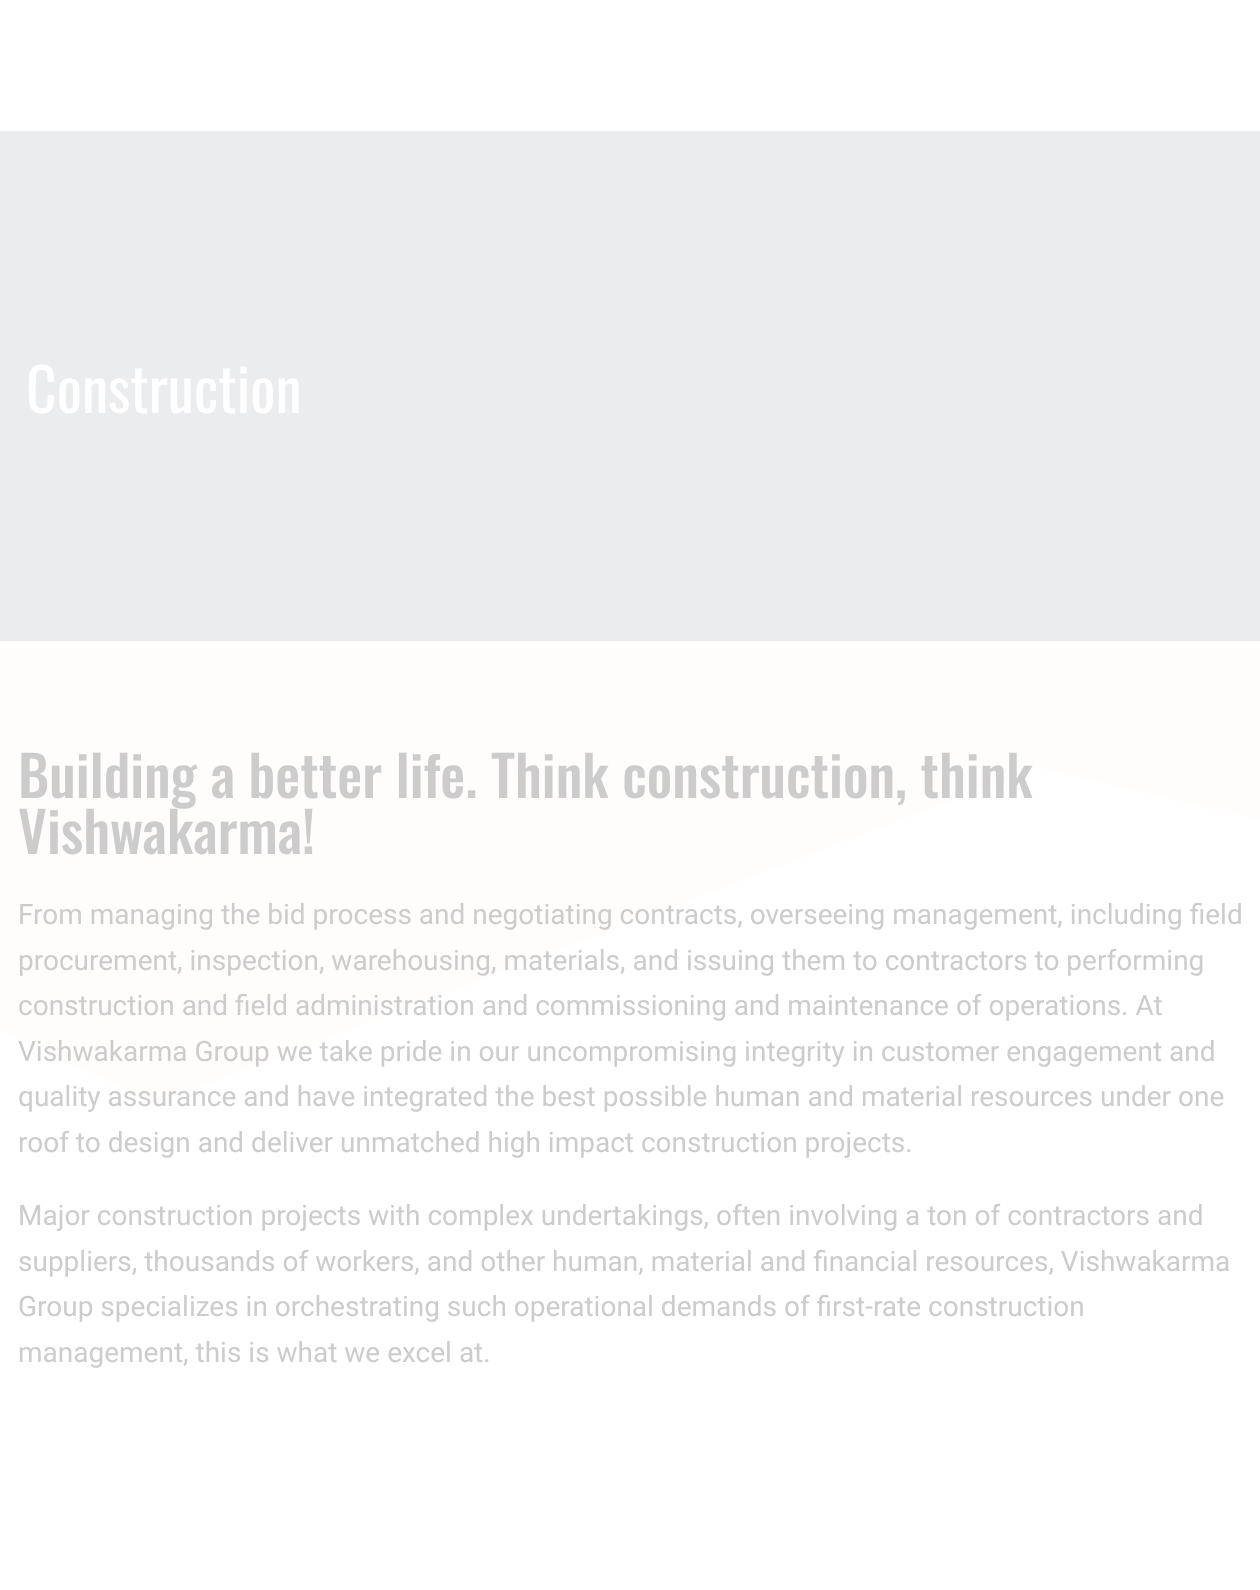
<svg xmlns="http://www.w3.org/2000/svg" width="1260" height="1590">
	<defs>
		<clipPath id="clip1"><rect x="0" y="641" width="1260" height="472" /></clipPath>
	</defs>
	<rect width="100%" height="100%" fill="#FFFFFF" />
	<rect x="0" y="131" width="1260" height="510" fill="#EBECEE" />
	<text x="26" y="413" font-family="Oswald" font-size="59.5" fill="#FFFFFF">Construction</text>
	<g clip-path="url(#clip1)">
		<path d="M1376 848L1038 768L156 1104L-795 657V639H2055V657" fill="#FFFCFC" />
	</g>
	<g font-family="Oswald" font-size="56" font-weight="500" fill="#CCCCCC">
		<text x="18" y="798">Building a better life. Think construction, think</text>
		<text x="18" y="854">Vishwakarma!</text>
	</g>
	<g font-family="Roboto" font-size="28" fill="#CCCCCC">
		<text x="18" y="924">From managing the bid process and negotiating contracts, overseeing management, including field</text>
		<text x="18" y="970">procurement, inspection, warehousing, materials, and issuing them to contractors to performing</text>
		<text x="18" y="1015">construction and field administration and commissioning and maintenance of operations. At</text>
		<text x="18" y="1061">Vishwakarma Group we take pride in our uncompromising integrity in customer engagement and</text>
		<text x="18" y="1106">quality assurance and have integrated the best possible human and material resources under one</text>
		<text x="18" y="1152">roof to design and deliver unmatched high impact construction projects.</text>
		<text x="18" y="1225">Major construction projects with complex undertakings, often involving a ton of contractors and</text>
		<text x="18" y="1271">suppliers, thousands of workers, and other human, material and financial resources, Vishwakarma</text>
		<text x="18" y="1316">Group specializes in orchestrating such operational demands of first-rate construction</text>
		<text x="18" y="1362">management, this is what we excel at.</text>
	</g>
</svg>
